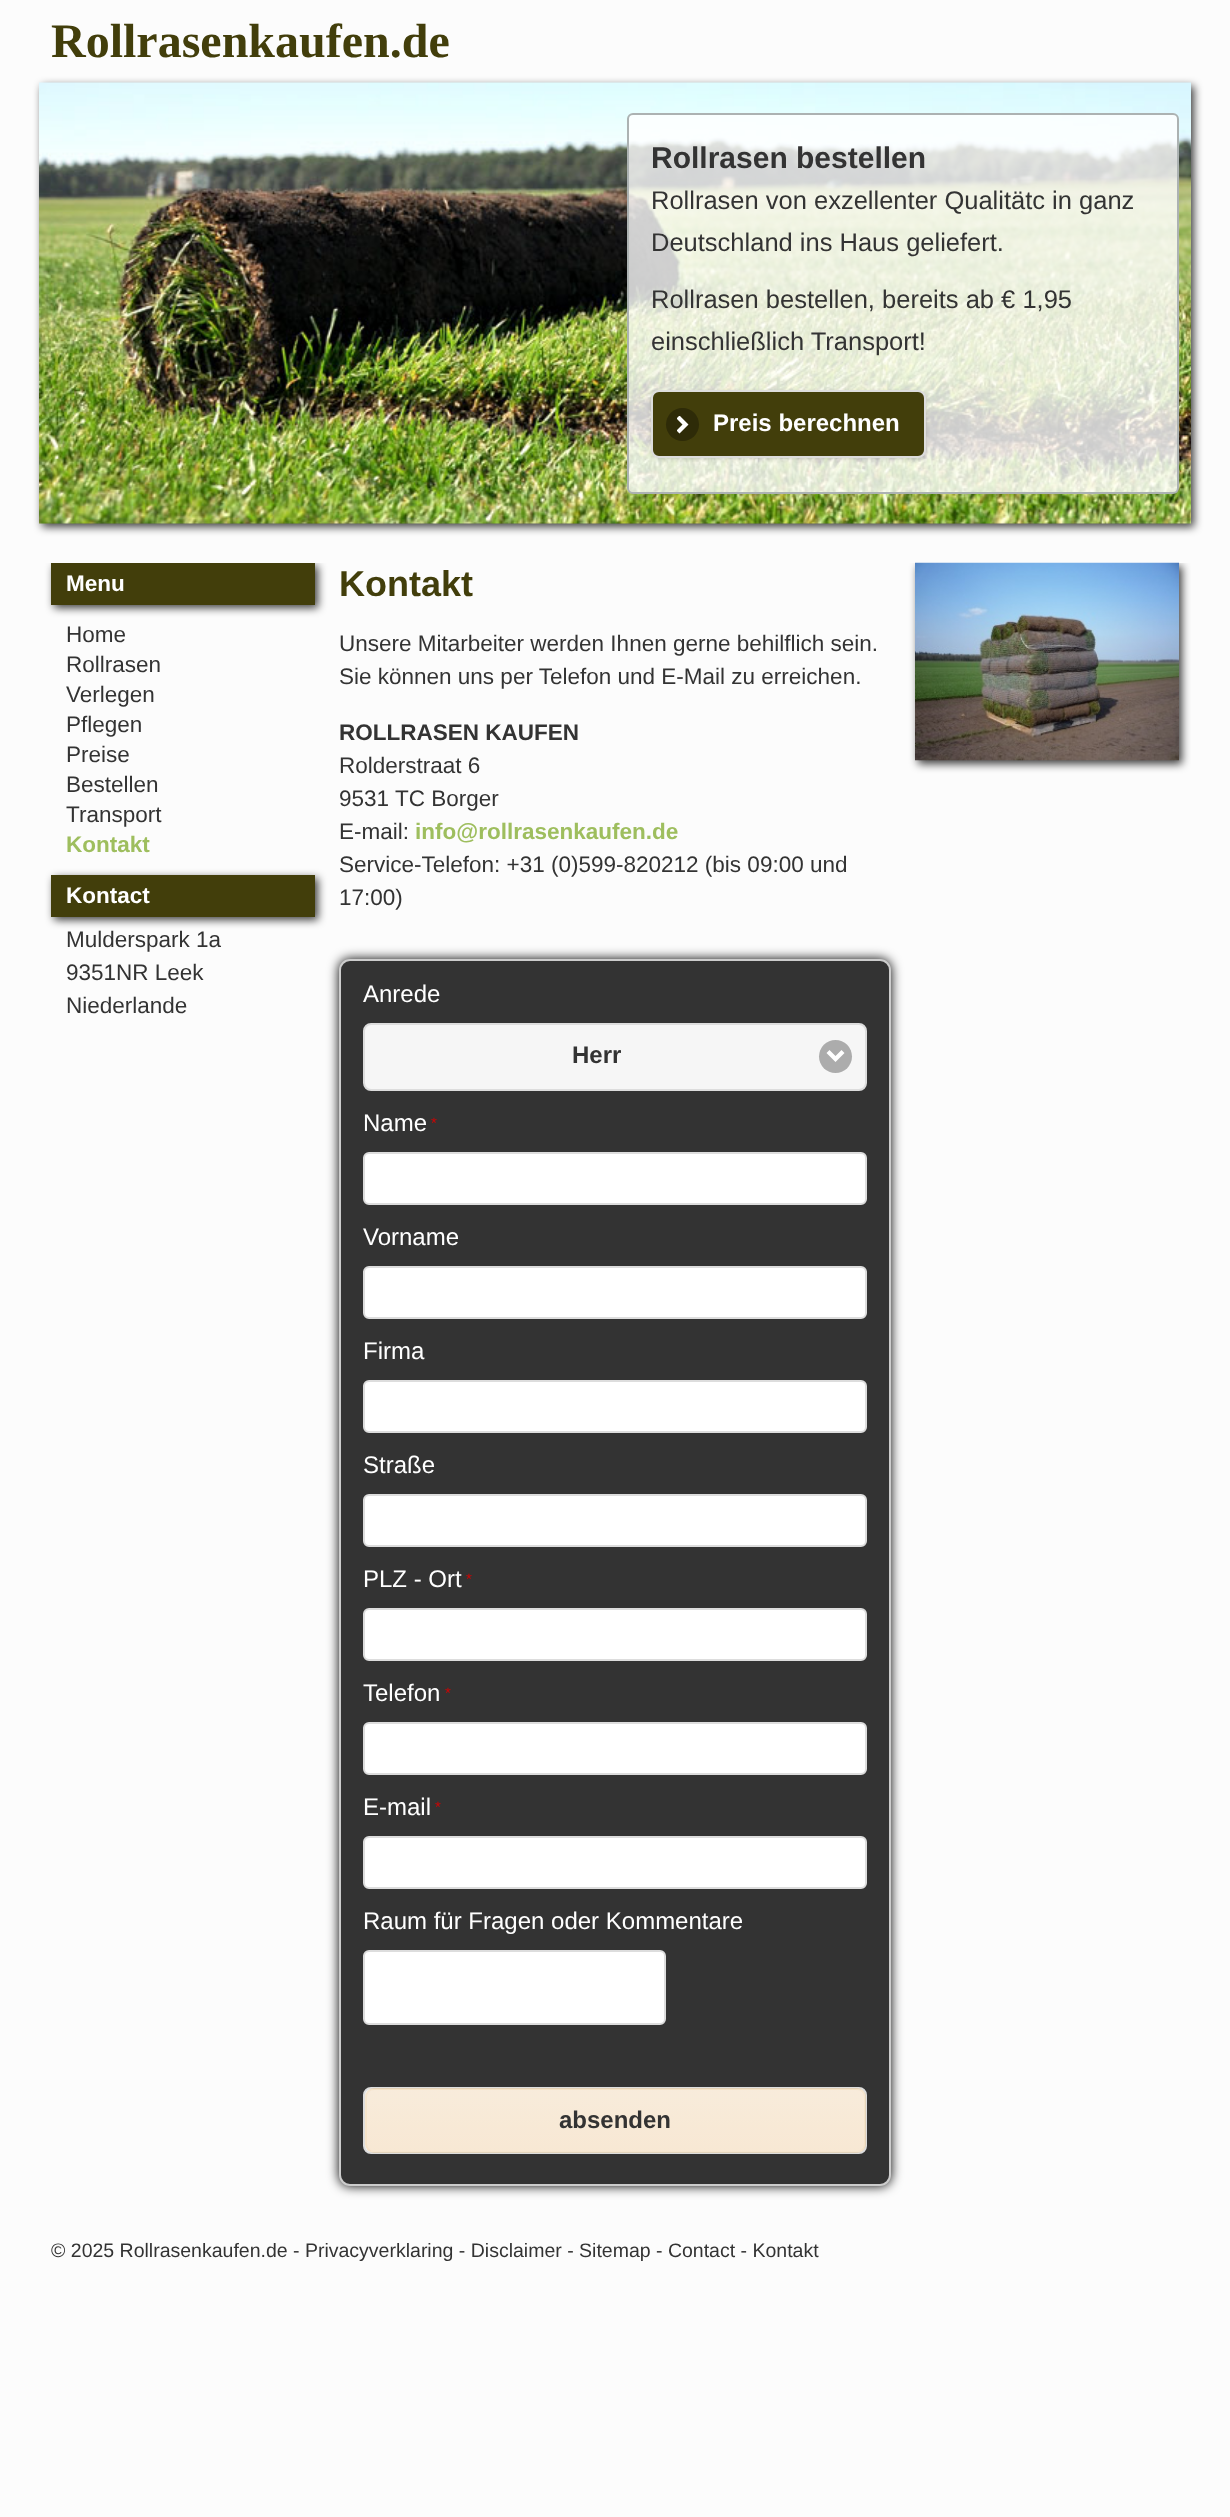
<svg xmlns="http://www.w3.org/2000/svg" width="1230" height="2517">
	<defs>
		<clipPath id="clip1"><rect x="677" y="416" width="12" height="18" /></clipPath>
		<clipPath id="clip2"><rect x="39" y="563" width="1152" height="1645" /></clipPath>
		<clipPath id="clip3"><rect x="365" y="2088" width="501" height="65" rx="9" /></clipPath>
		<linearGradient id="g1" gradientUnits="userSpaceOnUse" x1="615" y1="2028" x2="615" y2="2090"><stop offset="0.05" stop-color="#FFC477" stop-opacity="0.1" /><stop offset="1" stop-color="#FB9E25" stop-opacity="0.1" /></linearGradient>
		<linearGradient id="g2" gradientUnits="userSpaceOnUse" x1="615" y1="2090" x2="615" y2="2151"><stop offset="0.05" stop-color="#FFC477" stop-opacity="0.1" /><stop offset="1" stop-color="#FB9E25" stop-opacity="0.1" /></linearGradient>
		<linearGradient id="g3" gradientUnits="userSpaceOnUse" x1="615" y1="2151" x2="615" y2="2213"><stop offset="0.05" stop-color="#FFC477" stop-opacity="0.1" /><stop offset="1" stop-color="#FB9E25" stop-opacity="0.1" /></linearGradient>
	</defs>
	<rect width="100%" height="100%" fill="#FCFCFC" />
	<text x="51" y="57" font-family="Liberation Serif" font-size="48" font-weight="700" fill="#423E0B">Rollrasenkaufen.de</text>
	<rect x="42" y="86" width="1152" height="441" fill="#000000" fill-opacity="0.75" filter="blur(4px)" />
	<image x="39" y="82" width="1152" height="442" href="assets/img1.png" />
	<rect x="628" y="114" width="550" height="379" rx="5" fill="#FFFFFF" fill-opacity="0.8" stroke="#ACB2B2" stroke-width="2" />
	<text x="651" y="168" font-family="Liberation Sans" font-size="30" font-weight="700" fill="#333333">Rollrasen bestellen</text>
	<g font-family="Liberation Sans" font-size="25.5" fill="#333333">
		<text x="651" y="209">Rollrasen von exzellenter Qualitätc in ganz</text>
		<text x="651" y="251">Deutschland ins Haus geliefert.</text>
		<text x="651" y="308">Rollrasen bestellen, bereits ab € 1,95</text>
		<text x="651" y="350">einschließlich Transport!</text>
	</g>
	<rect x="651" y="392" width="275" height="67" rx="8" fill="#000000" fill-opacity="0.15" filter="blur(2px)" />
	<rect x="652" y="391" width="273" height="66" rx="7" fill="#423E0B" stroke="#DDDDDD" stroke-width="2" />
	<circle cx="682.5" cy="424.5" r="16.5" fill="#2E2B08" />
	<g clip-path="url(#clip1)">
		<path d="M679.5 415.5L676.5 418.5L682.5 424.5L676.5 430.5L679.5 433.5L688.5 424.5Z" fill="#FFFFFF" />
	</g>
	<text x="713" y="431" font-family="Liberation Sans" font-size="24" font-weight="700" fill="#FFFFFF">Preis berechnen</text>
	<g clip-path="url(#clip2)">
		<rect x="54" y="566" width="264" height="42" fill="#000000" fill-opacity="0.75" filter="blur(4px)" />
	</g>
	<rect x="51" y="563" width="264" height="42" fill="#423E0B" />
	<text x="66" y="591" font-family="Liberation Sans" font-size="22.5" font-weight="700" fill="#FFFFFF">Menu</text>
	<g font-family="Liberation Sans" font-size="22.5" fill="#333333">
		<text x="66" y="642">Home</text>
		<text x="66" y="672">Rollrasen</text>
		<text x="66" y="702">Verlegen</text>
		<text x="66" y="732">Pflegen</text>
		<text x="66" y="762">Preise</text>
		<text x="66" y="792">Bestellen</text>
		<text x="66" y="822">Transport</text>
	</g>
	<text x="66" y="852" font-family="Liberation Sans" font-size="22.5" font-weight="700" fill="#9EBE5E">Kontakt</text>
	<rect x="54" y="878" width="264" height="42" fill="#000000" fill-opacity="0.75" filter="blur(4px)" />
	<rect x="51" y="875" width="264" height="42" fill="#423E0B" />
	<text x="66" y="903" font-family="Liberation Sans" font-size="22.5" font-weight="700" fill="#FFFFFF">Kontact</text>
	<g font-family="Liberation Sans" font-size="22.5" fill="#333333">
		<text x="66" y="947">Mulderspark 1a</text>
		<text x="66" y="980">9351NR Leek</text>
		<text x="66" y="1013">Niederlande</text>
	</g>
	<text x="339" y="596" font-family="Liberation Sans" font-size="36" font-weight="700" fill="#423E0B">Kontakt</text>
	<g font-family="Liberation Sans" font-size="22.5" fill="#333333">
		<text x="339" y="651">Unsere Mitarbeiter werden Ihnen gerne behilflich sein.</text>
		<text x="339" y="684">Sie können uns per Telefon und E-Mail zu erreichen.</text>
	</g>
	<text x="339" y="740" font-family="Liberation Sans" font-size="22.5" font-weight="700" fill="#333333">ROLLRASEN KAUFEN</text>
	<g font-family="Liberation Sans" font-size="22.5" fill="#333333">
		<text x="339" y="773">Rolderstraat 6</text>
		<text x="339" y="806">9531 TC Borger</text>
		<text x="339" y="839">E-mail:</text>
	</g>
	<text x="415" y="839" font-family="Liberation Sans" font-size="22.5" font-weight="700" fill="#9EBE5E">info@rollrasenkaufen.de</text>
	<g font-family="Liberation Sans" font-size="22.5" fill="#333333">
		<text x="339" y="872">Service-Telefon: +31 (0)599-820212 (bis 09:00 und</text>
		<text x="339" y="905">17:00)</text>
	</g>
	<rect x="339" y="959" width="552" height="1227" rx="11" fill="#000000" filter="blur(6px)" />
	<rect x="340" y="960" width="550" height="1225" rx="10" fill="#333333" stroke="#CCCCCC" stroke-width="2" />
	<text x="363" y="1002" font-family="Liberation Sans" font-size="24" fill="#FFFFFF">Anrede</text>
	<rect x="364" y="1024" width="502" height="66" rx="7" fill="#F6F6F6" stroke="#DDDDDD" stroke-width="2" />
	<text x="572" y="1063" font-family="Liberation Sans" font-size="24" font-weight="700" fill="#333333">Herr</text>
	<circle cx="835.5" cy="1056.5" r="16.5" fill="#ACACAC" />
	<path d="M841.5 1050L835.5 1056L829.5 1050L826.5 1053L835.5 1062L844.5 1053Z" fill="#FFFFFF" />
	<text x="363" y="1131" font-family="Liberation Sans" font-size="24" fill="#FFFFFF">Name</text>
	<text x="431" y="1128" font-family="Liberation Sans" font-size="15" fill="#CF0404">*</text>
	<rect x="364" y="1153" width="502" height="51" rx="5" fill="#FFFFFF" stroke="#DDDDDD" stroke-width="2" />
	<text x="363" y="1245" font-family="Liberation Sans" font-size="24" fill="#FFFFFF">Vorname</text>
	<rect x="364" y="1267" width="502" height="51" rx="5" fill="#FFFFFF" stroke="#DDDDDD" stroke-width="2" />
	<text x="363" y="1359" font-family="Liberation Sans" font-size="24" fill="#FFFFFF">Firma</text>
	<rect x="364" y="1381" width="502" height="51" rx="5" fill="#FFFFFF" stroke="#DDDDDD" stroke-width="2" />
	<text x="363" y="1473" font-family="Liberation Sans" font-size="24" fill="#FFFFFF">Straße</text>
	<rect x="364" y="1495" width="502" height="51" rx="5" fill="#FFFFFF" stroke="#DDDDDD" stroke-width="2" />
	<text x="363" y="1587" font-family="Liberation Sans" font-size="24" fill="#FFFFFF">PLZ - Ort</text>
	<text x="466" y="1584" font-family="Liberation Sans" font-size="15" fill="#CF0404">*</text>
	<rect x="364" y="1609" width="502" height="51" rx="5" fill="#FFFFFF" stroke="#DDDDDD" stroke-width="2" />
	<text x="363" y="1701" font-family="Liberation Sans" font-size="24" fill="#FFFFFF">Telefon</text>
	<text x="445" y="1698" font-family="Liberation Sans" font-size="15" fill="#CF0404">*</text>
	<rect x="364" y="1723" width="502" height="51" rx="5" fill="#FFFFFF" stroke="#DDDDDD" stroke-width="2" />
	<text x="363" y="1815" font-family="Liberation Sans" font-size="24" fill="#FFFFFF">E-mail</text>
	<text x="435" y="1812" font-family="Liberation Sans" font-size="15" fill="#CF0404">*</text>
	<rect x="364" y="1837" width="502" height="51" rx="5" fill="#FFFFFF" stroke="#DDDDDD" stroke-width="2" />
	<text x="363" y="1929" font-family="Liberation Sans" font-size="24" fill="#FFFFFF">Raum für Fragen oder Kommentare</text>
	<rect x="364" y="1951" width="301" height="73" rx="5" fill="#FFFFFF" stroke="#DDDDDD" stroke-width="2" />
	<rect x="364" y="2088" width="502" height="65" rx="7" fill="#F6F6F6" stroke="#DDDDDD" stroke-width="2" />
	<rect x="365" y="2088" width="501" height="65" rx="9" fill="#FFC477" fill-opacity="0.1" />
	<g clip-path="url(#clip3)">
		<rect x="365" y="2088" width="501" height="2" fill="url(#g1)" />
		<rect x="365" y="2090" width="501" height="61" fill="url(#g2)" />
		<rect x="365" y="2151" width="501" height="2" fill="url(#g3)" />
	</g>
	<path d="M374 2090C370 2090 366 2094 366 2098V2143C366 2147 370 2151 374 2151H856C860 2151 864 2147 864 2143V2098C864 2094 860 2090 856 2090Z" fill="#FCE2C1" fill-opacity="0.1" />
	<rect x="366" y="2089" width="499" height="63" rx="8" fill="none" stroke="#EEB44F" stroke-opacity="0.1" stroke-width="2" />
	<text x="559" y="2128" font-family="Liberation Sans" font-size="24" font-weight="700" fill="#333333">absenden</text>
	<g clip-path="url(#clip2)">
		<rect x="918" y="566" width="264" height="198" fill="#000000" fill-opacity="0.75" filter="blur(4px)" />
	</g>
	<image x="915" y="562" width="264" height="199" href="assets/img2.png" />
	<text x="51" y="2257" font-family="Liberation Sans" font-size="19.5" fill="#333333">© 2025 Rollrasenkaufen.de - Privacyverklaring - Disclaimer - Sitemap - Contact - Kontakt</text>
</svg>
